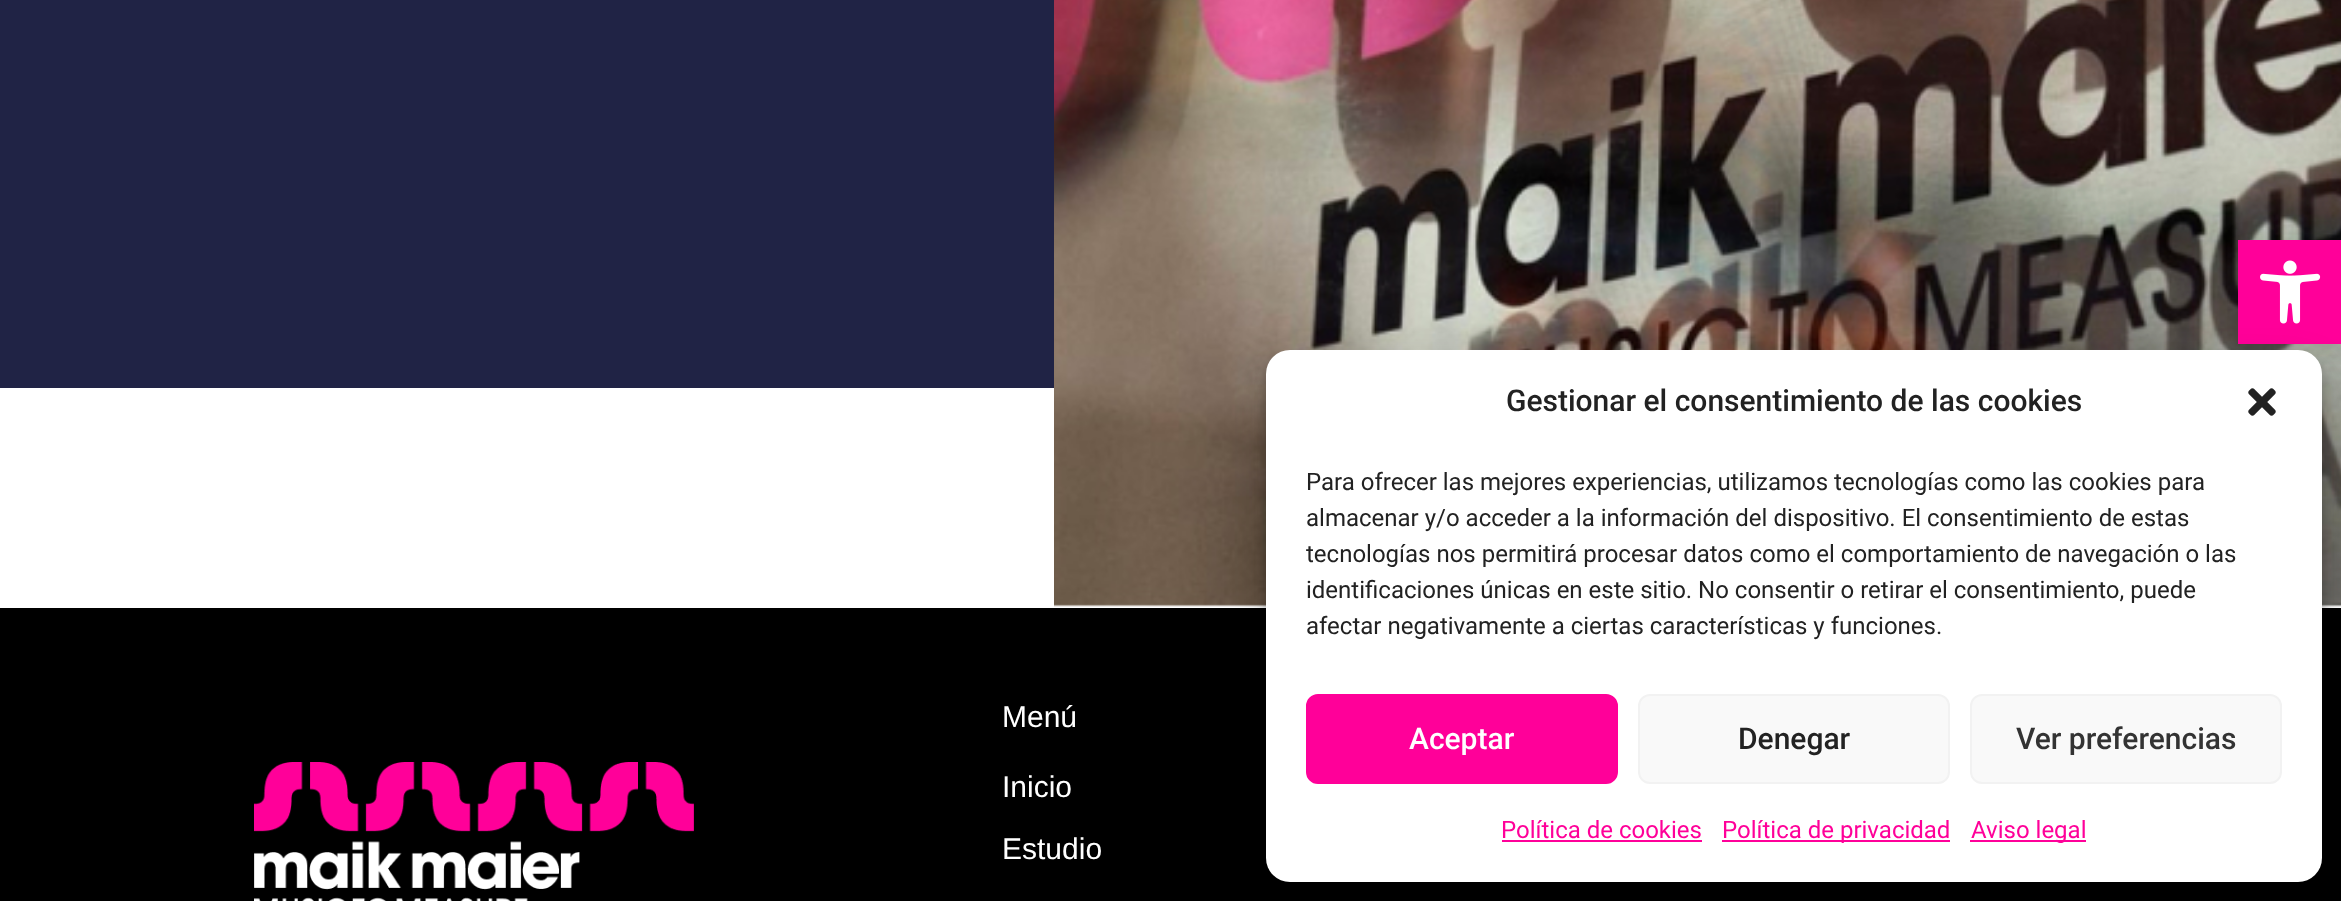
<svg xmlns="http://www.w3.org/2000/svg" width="2341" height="901">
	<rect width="100%" height="100%" fill="#FFFFFF" />
	<rect x="0" y="0" width="1054" height="388" fill="#202345" />
	<image x="1054" y="0" width="1287" height="607" href="assets/img1.png" />
	<rect x="2238" y="240" width="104" height="104" fill="#000000" fill-opacity="0.1" filter="blur(10px)" />
	<rect x="2238" y="240" width="103" height="104" fill="#FF0099" />
	<image x="2260" y="260" width="61" height="64" href="assets/img2.png" />
	<rect x="0" y="608" width="2341" height="293" fill="#000000" />
	<image x="254" y="762" width="440" height="139" href="assets/img3.png" />
	<g font-family="Liberation Sans" font-size="30" fill="#FFFFFF">
		<text x="1002" y="727">Menú</text>
		<text x="1002" y="797">Inicio</text>
		<text x="1002" y="859">Estudio</text>
	</g>
	<rect x="1266" y="362" width="1056" height="532" rx="24" fill="#000000" fill-opacity="0.23" filter="blur(6px)" />
	<rect x="1266" y="370" width="1056" height="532" rx="24" fill="#000000" fill-opacity="0.19" filter="blur(20px)" />
	<rect x="1266" y="350" width="1056" height="532" rx="24" fill="#FFFFFF" />
	<text x="1506" y="411" font-family="Roboto" font-size="30" font-weight="500" fill="#222222">Gestionar el consentimiento de las cookies</text>
	<image x="2248" y="388" width="28" height="28" href="assets/img4.png" />
	<g font-family="Roboto" font-size="24" fill="#222222">
		<text x="1306" y="490">Para ofrecer las mejores experiencias, utilizamos tecnologías como las cookies para</text>
		<text x="1306" y="526">almacenar y/o acceder a la información del dispositivo. El consentimiento de estas</text>
		<text x="1306" y="562">tecnologías nos permitirá procesar datos como el comportamiento de navegación o las</text>
		<text x="1306" y="598">identificaciones únicas en este sitio. No consentir o retirar el consentimiento, puede</text>
		<text x="1306" y="634">afectar negativamente a ciertas características y funciones.</text>
	</g>
	<rect x="1307" y="695" width="310" height="88" rx="11" fill="#FF0099" stroke="#FF0099" stroke-width="2" />
	<text x="1409" y="749" font-family="Roboto" font-size="30" font-weight="500" fill="#FFFFFF">Aceptar</text>
	<rect x="1639" y="695" width="310" height="88" rx="11" fill="#F9F9F9" stroke="#F2F2F2" stroke-width="2" />
	<text x="1738" y="749" font-family="Roboto" font-size="30" font-weight="500" fill="#222222">Denegar</text>
	<rect x="1971" y="695" width="310" height="88" rx="11" fill="#F9F9F9" stroke="#F2F2F2" stroke-width="2" />
	<text x="2016" y="749" font-family="Roboto" font-size="30" font-weight="500" fill="#333333">Ver preferencias</text>
	<text x="1501" y="838" font-family="Roboto" font-size="24" fill="#FF0099">Política de cookies</text>
	<rect x="1502" y="840" width="200" height="2" fill="#FF0099" />
	<rect x="1722" y="840" width="228" height="2" fill="#FF0099" />
	<text x="1722" y="838" font-family="Roboto" font-size="24" fill="#FF0099">Política de privacidad</text>
	<rect x="1970" y="840" width="116" height="2" fill="#FF0099" />
	<text x="1971" y="838" font-family="Roboto" font-size="24" fill="#FF0099">Aviso legal</text>
</svg>
